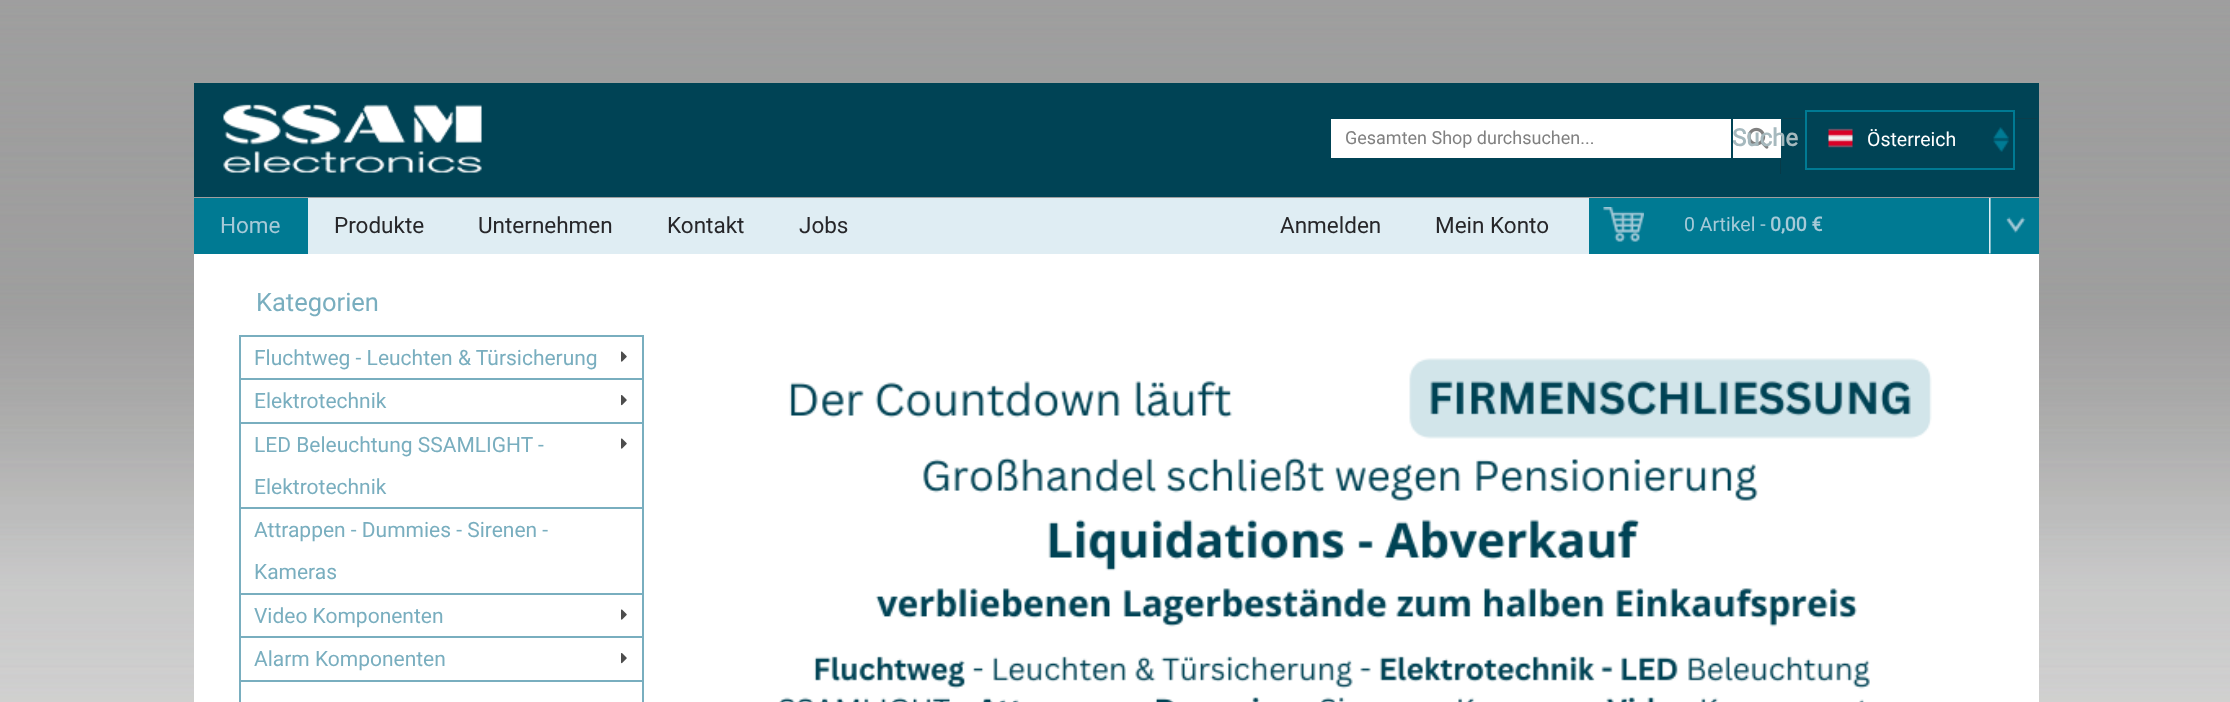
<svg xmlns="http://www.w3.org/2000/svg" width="2230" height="702">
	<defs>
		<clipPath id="clip1"><rect x="1346" y="119" width="370" height="39" /></clipPath>
	</defs>
	<rect width="100%" height="100%" fill="#FFFFFF" />
	<image x="0" y="0" width="2230" height="702" href="assets/img1.png" />
	<rect x="194" y="83" width="1845" height="114" fill="#004355" />
	<image x="223" y="104" width="259" height="69" href="assets/img2.png" />
	<image x="1780" y="118" width="257" height="56" href="assets/img4.png" />
	<rect x="1331" y="119" width="450" height="39" fill="#FFFFFF" />
	<rect x="1731" y="119" width="2" height="39" fill="#004355" />
	<g clip-path="url(#clip1)">
		<text x="1345" y="144" font-family="Roboto" font-size="18" fill="#808080">Gesamten Shop durchsuchen...</text>
	</g>
	<image x="1747" y="127" width="22" height="22" href="assets/img3.png" />
	<rect x="1781" y="119" width="256" height="55" fill="#004355" />
	<rect x="1782" y="109" width="256" height="61" fill="none" stroke="#004355" stroke-width="2" />
	<text x="1732" y="146" font-family="Roboto" font-size="24" font-weight="700" fill="#A6B9BE">Suche</text>
	<rect x="1807" y="118" width="206" height="1" fill="#004355" />
	<image x="1993" y="127" width="16" height="25" href="assets/img5.png" />
	<rect x="1806" y="111" width="208" height="58" fill="none" stroke="#007A93" stroke-width="2" />
	<image x="1828" y="128" width="25" height="20" href="assets/img6.png" />
	<text x="1867" y="146" font-family="Roboto" font-size="19.5" fill="#FFFFFF">Österreich</text>
	<rect x="308" y="198" width="1281" height="56" fill="#DFEDF3" />
	<rect x="194" y="198" width="114" height="56" fill="#007A93" />
	<text x="220" y="233" font-family="Roboto" font-size="22.5" fill="#A6CAD8">Home</text>
	<g font-family="Roboto" font-size="22.5" fill="#262629">
		<text x="334" y="233">Produkte</text>
		<text x="478" y="233">Unternehmen</text>
		<text x="667" y="233">Kontakt</text>
		<text x="799" y="233">Jobs</text>
		<text x="1280" y="233">Anmelden</text>
		<text x="1435" y="233">Mein Konto</text>
	</g>
	<rect x="1589" y="198" width="450" height="56" fill="#007A93" />
	<image x="1603" y="207" width="41" height="35" href="assets/img7.png" />
	<text x="1684" y="231" font-family="Roboto" font-size="19.5" fill="#A6CAD8">0 Artikel -</text>
	<text x="1770" y="231" font-family="Roboto" font-size="19.5" font-weight="700" fill="#A6CAD8">0,00 €</text>
	<image x="1989" y="198" width="37" height="56" href="assets/img8.png" />
	<rect x="194" y="254" width="1845" height="448" fill="#FFFFFF" />
	<text x="256" y="311" font-family="Roboto" font-size="25.5" fill="#79AEBF">Kategorien</text>
	<rect x="239" y="335" width="405" height="2" fill="#79AEBF" />
	<rect x="642" y="335" width="2" height="43" fill="#79AEBF" />
	<rect x="239" y="335" width="2" height="43" fill="#79AEBF" />
	<text x="254" y="365" font-family="Roboto" font-size="21" fill="#79AEBF">Fluchtweg - Leuchten &amp; Türsicherung</text>
	<image x="621" y="351" width="6" height="11" href="assets/img9.png" />
	<rect x="239" y="378" width="405" height="2" fill="#79AEBF" />
	<rect x="642" y="378" width="2" height="44" fill="#79AEBF" />
	<rect x="239" y="378" width="2" height="44" fill="#79AEBF" />
	<text x="254" y="408" font-family="Roboto" font-size="21" fill="#79AEBF">Elektrotechnik</text>
	<image x="621" y="395" width="6" height="11" href="assets/img10.png" />
	<rect x="239" y="422" width="405" height="2" fill="#79AEBF" />
	<rect x="642" y="422" width="2" height="85" fill="#79AEBF" />
	<rect x="239" y="422" width="2" height="85" fill="#79AEBF" />
	<g font-family="Roboto" font-size="21" fill="#79AEBF">
		<text x="254" y="452">LED Beleuchtung SSAMLIGHT -</text>
		<text x="254" y="494">Elektrotechnik</text>
	</g>
	<image x="621" y="438" width="6" height="11" href="assets/img9.png" />
	<rect x="239" y="507" width="405" height="2" fill="#79AEBF" />
	<rect x="642" y="507" width="2" height="86" fill="#79AEBF" />
	<rect x="239" y="507" width="2" height="86" fill="#79AEBF" />
	<g font-family="Roboto" font-size="21" fill="#79AEBF">
		<text x="254" y="537">Attrappen - Dummies - Sirenen -</text>
		<text x="254" y="579">Kameras</text>
	</g>
	<rect x="239" y="593" width="405" height="2" fill="#79AEBF" />
	<rect x="642" y="593" width="2" height="43" fill="#79AEBF" />
	<rect x="239" y="593" width="2" height="43" fill="#79AEBF" />
	<text x="254" y="623" font-family="Roboto" font-size="21" fill="#79AEBF">Video Komponenten</text>
	<image x="621" y="609" width="6" height="11" href="assets/img9.png" />
	<rect x="239" y="636" width="405" height="2" fill="#79AEBF" />
	<rect x="642" y="636" width="2" height="44" fill="#79AEBF" />
	<rect x="239" y="636" width="2" height="44" fill="#79AEBF" />
	<text x="254" y="666" font-family="Roboto" font-size="21" fill="#79AEBF">Alarm Komponenten</text>
	<image x="621" y="653" width="6" height="11" href="assets/img10.png" />
	<rect x="239" y="680" width="405" height="2" fill="#79AEBF" />
	<rect x="642" y="680" width="2" height="22" fill="#79AEBF" />
	<rect x="239" y="680" width="2" height="22" fill="#79AEBF" />
	<image x="779" y="358" width="1153" height="344" href="assets/img11.png" />
</svg>
